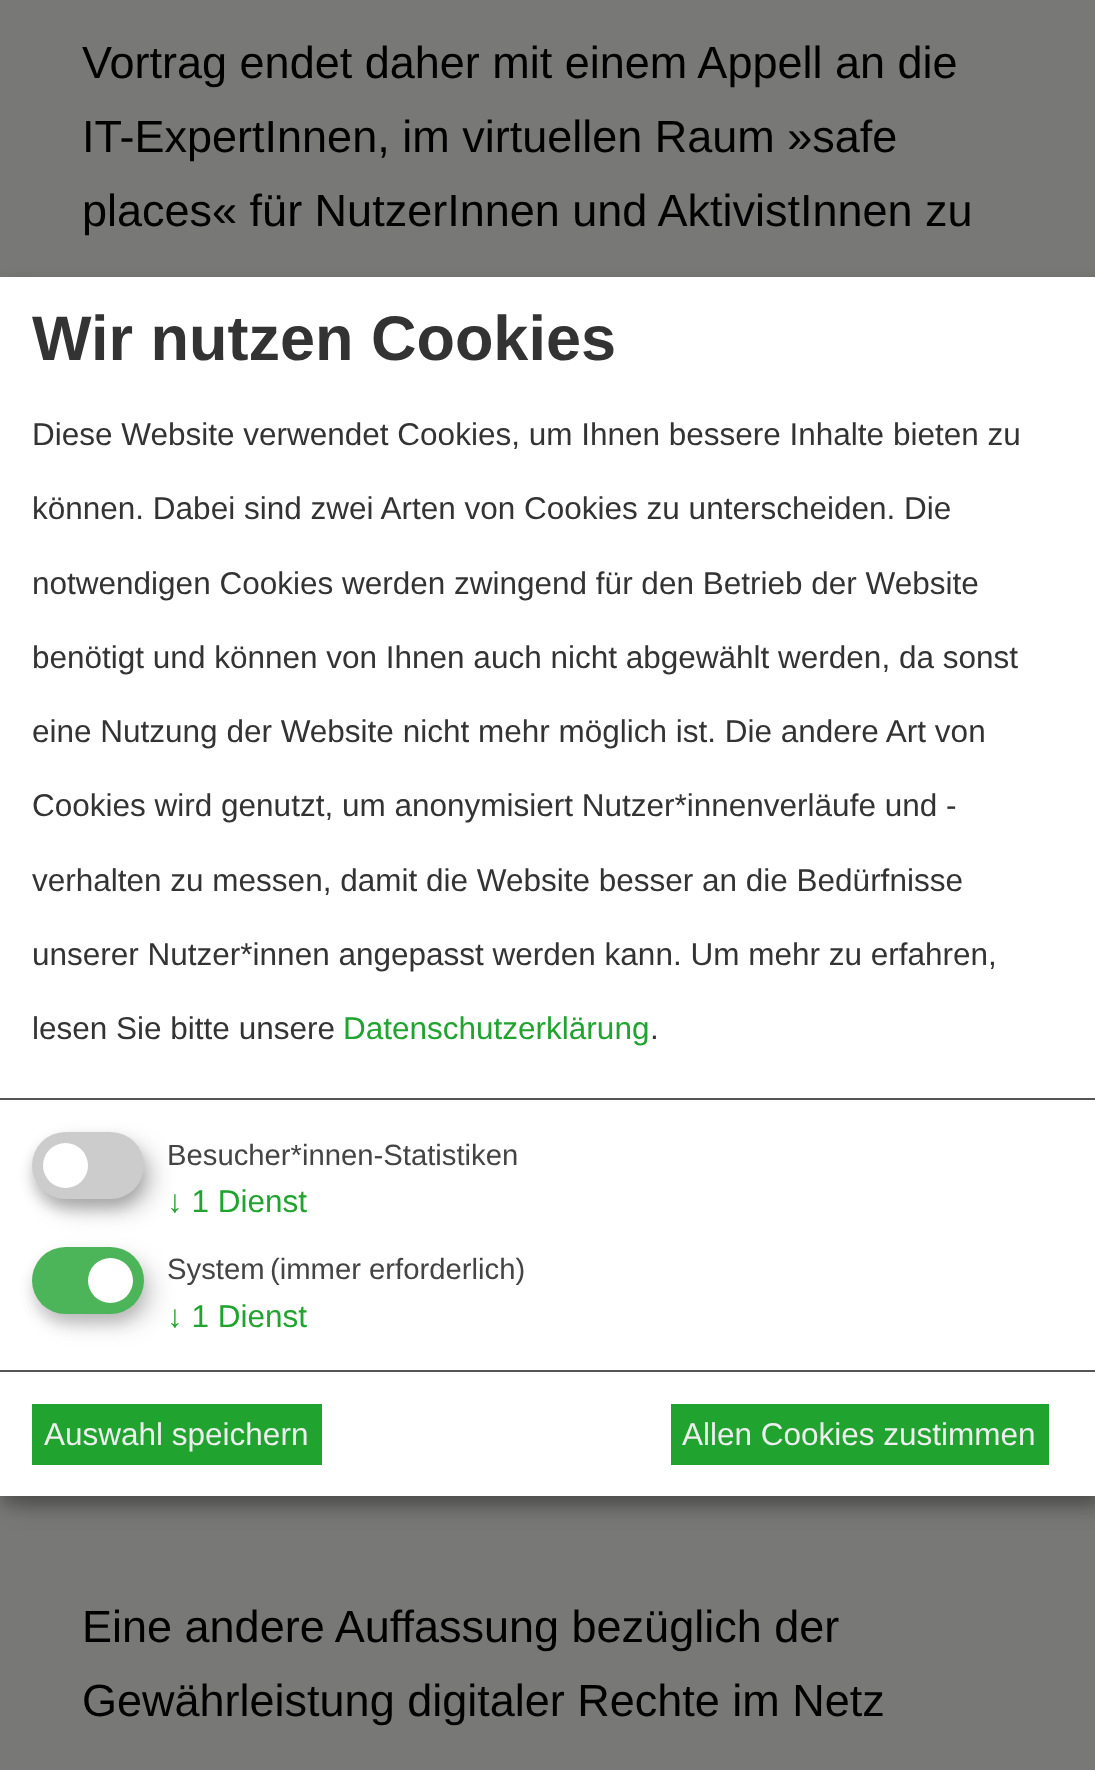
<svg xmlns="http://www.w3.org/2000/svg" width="1095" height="1770">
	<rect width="100%" height="100%" fill="#787877" />
	<g font-family="Liberation Sans" font-size="45" fill="#000000">
		<text x="82" y="78">Vortrag endet daher mit einem Appell an die</text>
		<text x="82" y="152">IT-ExpertInnen, im virtuellen Raum »safe</text>
		<text x="82" y="226">places« für NutzerInnen und AktivistInnen zu</text>
		<text x="82" y="1642">Eine andere Auffassung bezüglich der</text>
		<text x="82" y="1716">Gewährleistung digitaler Rechte im Netz</text>
	</g>
	<rect x="11" y="288" width="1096" height="1220" fill="#000000" fill-opacity="0.19" filter="blur(11px)" />
	<rect x="0" y="286" width="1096" height="1219" fill="#000000" fill-opacity="0.2" filter="blur(7px)" />
	<rect x="0" y="277" width="1095" height="1219" fill="#FFFFFF" />
	<rect x="0" y="1098" width="1095" height="2" fill="#555555" />
	<text x="32" y="360" font-family="Liberation Sans" font-size="63" font-weight="700" fill="#333333">Wir nutzen Cookies</text>
	<g font-family="Liberation Sans" font-size="31.5" fill="#333333">
		<text x="32" y="445">Diese Website verwendet Cookies, um Ihnen bessere Inhalte bieten zu</text>
		<text x="32" y="519">können. Dabei sind zwei Arten von Cookies zu unterscheiden. Die</text>
		<text x="32" y="594">notwendigen Cookies werden zwingend für den Betrieb der Website</text>
		<text x="32" y="668">benötigt und können von Ihnen auch nicht abgewählt werden, da sonst</text>
		<text x="32" y="742">eine Nutzung der Website nicht mehr möglich ist. Die andere Art von</text>
		<text x="32" y="816">Cookies wird genutzt, um anonymisiert Nutzer*innenverläufe und -</text>
		<text x="32" y="891">verhalten zu messen, damit die Website besser an die Bedürfnisse</text>
		<text x="32" y="965">unserer Nutzer*innen angepasst werden kann. Um mehr zu erfahren,</text>
		<text x="32" y="1039">lesen Sie bitte unsere</text>
	</g>
	<text x="343" y="1039" font-family="Liberation Sans" font-size="31.5" fill="#20A32F">Datenschutzerklärung</text>
	<text x="650" y="1039" font-family="Liberation Sans" font-size="31.5" fill="#333333">.</text>
	<rect x="43" y="1143" width="112" height="68" rx="34" fill="#000000" fill-opacity="0.19" filter="blur(11px)" />
	<rect x="32" y="1141" width="112" height="67" rx="33.5" fill="#000000" fill-opacity="0.2" filter="blur(7px)" />
	<rect x="32" y="1132" width="112" height="67" rx="33.5" fill="#CCCCCC" />
	<circle cx="65.5" cy="1165.5" r="22.5" fill="#FFFFFF" />
	<text x="167" y="1165" font-family="Liberation Sans" font-size="29.25" fill="#444444">Besucher*innen-Statistiken</text>
	<text x="167" y="1212" font-family="Liberation Sans" font-size="31.5" fill="#20A32F">↓ 1 Dienst</text>
	<rect x="43" y="1258" width="112" height="67" rx="33.5" fill="#000000" fill-opacity="0.15" filter="blur(11px)" />
	<rect x="32" y="1256" width="112" height="67" rx="33.5" fill="#333333" fill-opacity="0.2" filter="blur(7px)" />
	<rect x="32" y="1247" width="112" height="67" rx="33.5" fill="#4DB559" />
	<circle cx="110.5" cy="1280.5" r="22.5" fill="#FFFFFF" />
	<g font-family="Liberation Sans" font-size="29.25" fill="#444444">
		<text x="167" y="1279">System</text>
		<text x="270" y="1279">(immer erforderlich)</text>
	</g>
	<text x="167" y="1327" font-family="Liberation Sans" font-size="31.5" fill="#20A32F">↓ 1 Dienst</text>
	<rect x="0" y="1370" width="1095" height="2" fill="#555555" />
	<rect x="32" y="1404" width="290" height="61" fill="#20A32F" />
	<text x="44" y="1445" font-family="Liberation Sans" font-size="31.5" fill="#EEEEEE">Auswahl speichern</text>
	<rect x="671" y="1404" width="378" height="61" fill="#20A32F" />
	<text x="682" y="1445" font-family="Liberation Sans" font-size="31.5" fill="#EEEEEE">Allen Cookies zustimmen</text>
</svg>
